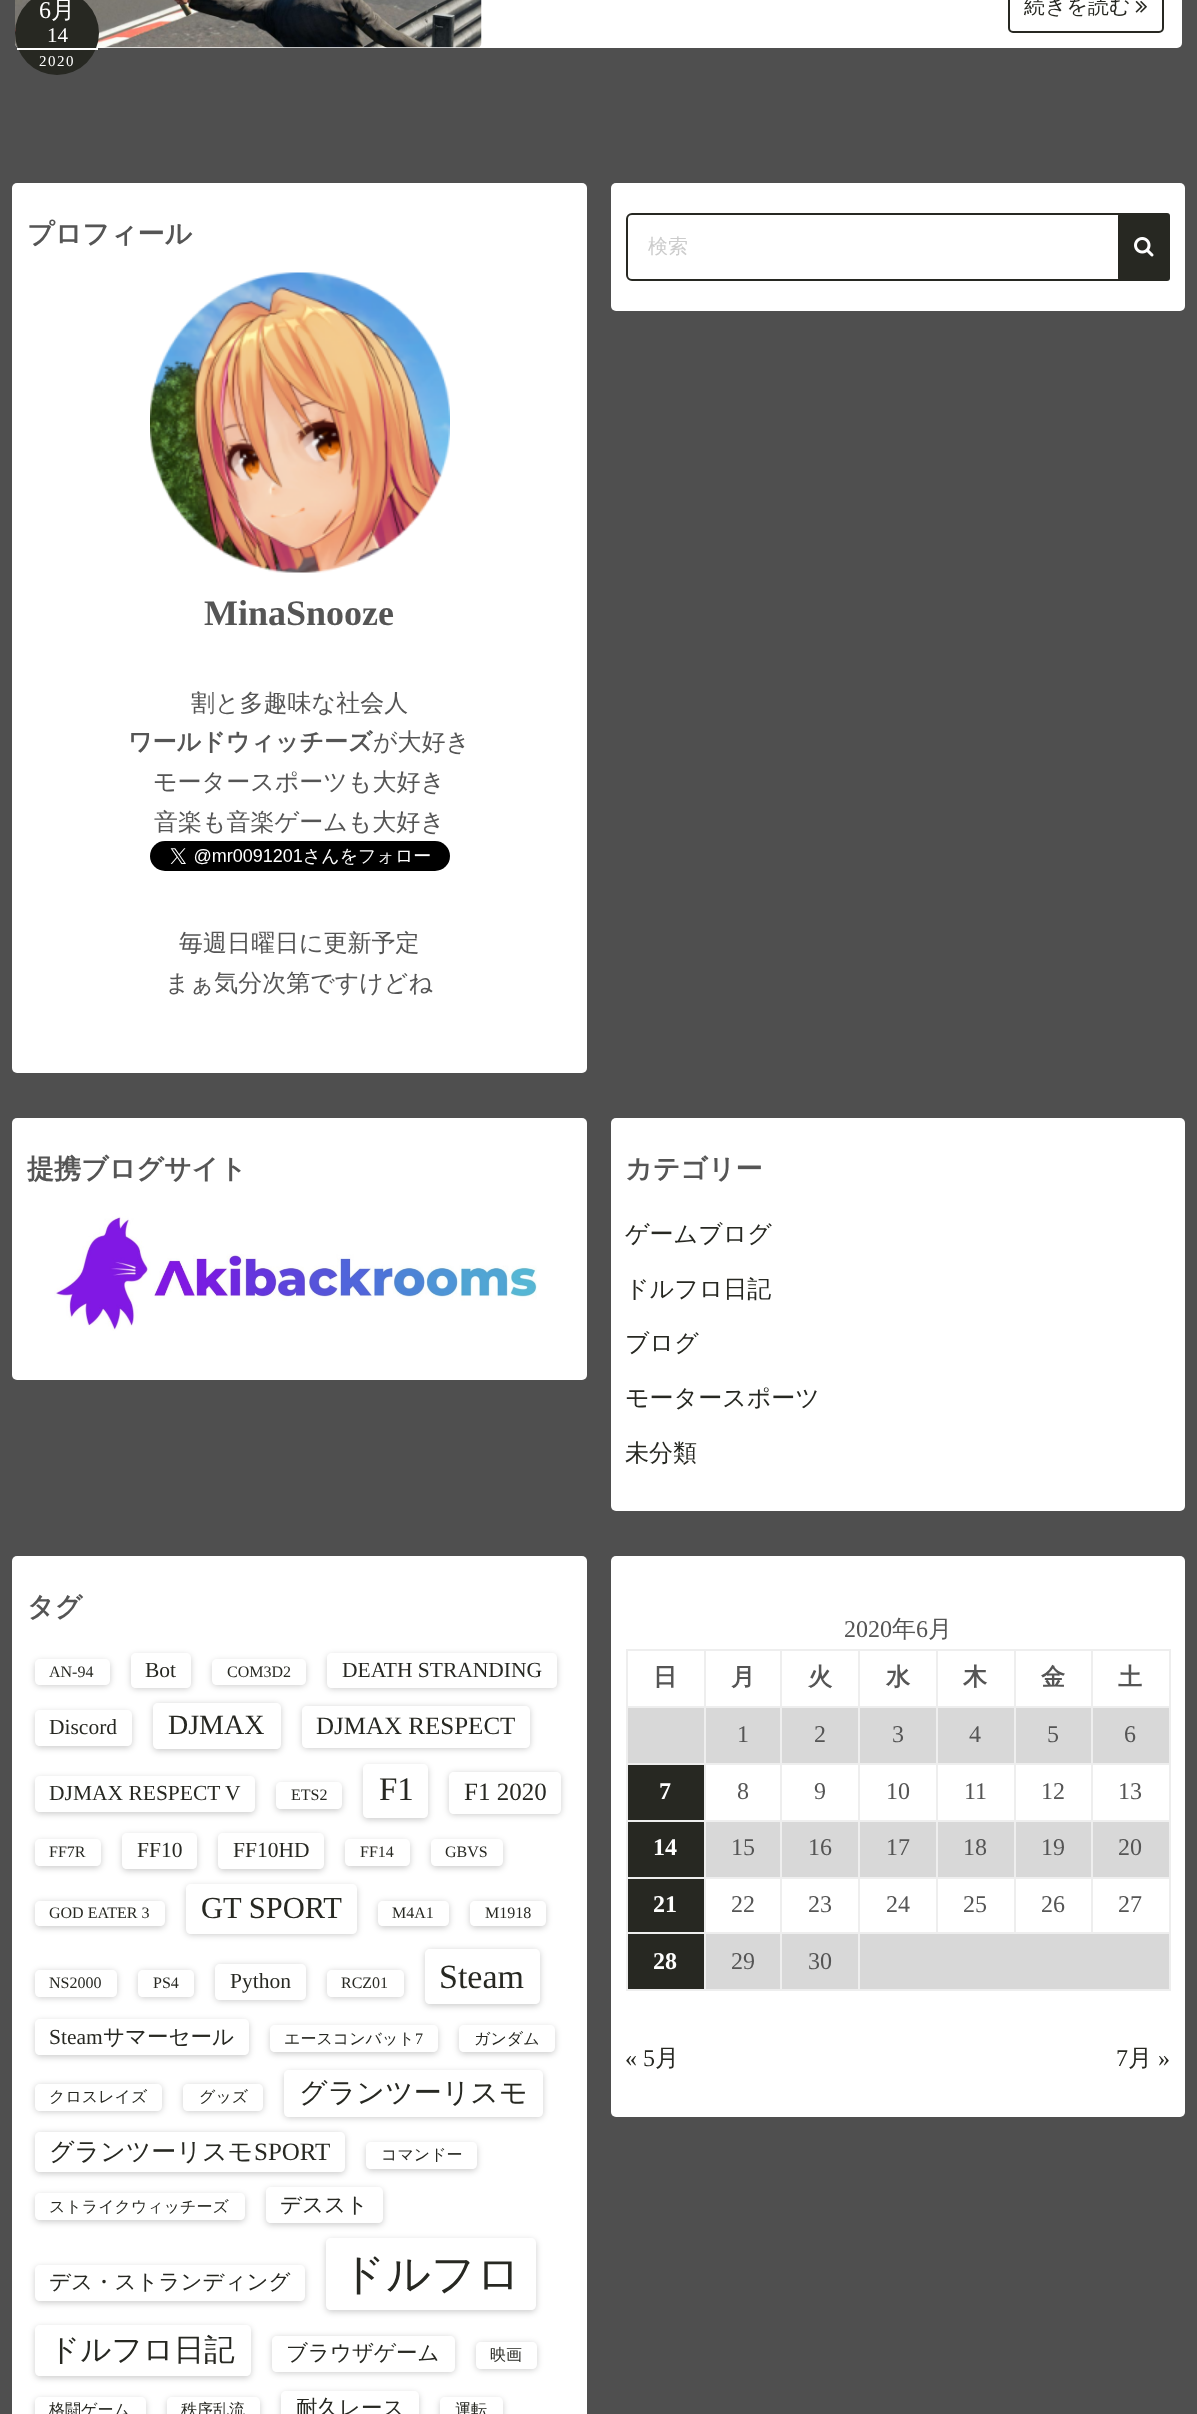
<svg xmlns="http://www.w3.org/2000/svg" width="1197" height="2414">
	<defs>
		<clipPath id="clip1"><path d="M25 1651H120V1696H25ZM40 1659H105C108 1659 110 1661 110 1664V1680C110 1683 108 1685 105 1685H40C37 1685 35 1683 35 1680V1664C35 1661 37 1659 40 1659Z" clip-rule="evenodd" /></clipPath>
		<clipPath id="clip2"><path d="M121 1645H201V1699H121ZM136 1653H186C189 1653 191 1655 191 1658V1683C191 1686 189 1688 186 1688H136C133 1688 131 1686 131 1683V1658C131 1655 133 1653 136 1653Z" clip-rule="evenodd" /></clipPath>
		<clipPath id="clip3"><path d="M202 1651H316V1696H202ZM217 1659H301C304 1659 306 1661 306 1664V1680C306 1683 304 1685 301 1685H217C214 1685 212 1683 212 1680V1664C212 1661 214 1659 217 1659Z" clip-rule="evenodd" /></clipPath>
		<clipPath id="clip4"><path d="M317 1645H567V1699H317ZM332 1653H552C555 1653 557 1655 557 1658V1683C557 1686 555 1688 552 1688H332C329 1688 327 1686 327 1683V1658C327 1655 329 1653 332 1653Z" clip-rule="evenodd" /></clipPath>
		<clipPath id="clip5"><path d="M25 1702H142V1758H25ZM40 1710H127C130 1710 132 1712 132 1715V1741C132 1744 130 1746 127 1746H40C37 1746 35 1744 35 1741V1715C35 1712 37 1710 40 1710Z" clip-rule="evenodd" /></clipPath>
		<clipPath id="clip6"><path d="M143 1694H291V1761H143ZM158 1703H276C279 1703 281 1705 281 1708V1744C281 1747 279 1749 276 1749H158C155 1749 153 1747 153 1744V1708C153 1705 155 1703 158 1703Z" clip-rule="evenodd" /></clipPath>
		<clipPath id="clip7"><path d="M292 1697H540V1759H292ZM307 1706H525C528 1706 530 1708 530 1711V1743C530 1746 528 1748 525 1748H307C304 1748 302 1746 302 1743V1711C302 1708 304 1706 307 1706Z" clip-rule="evenodd" /></clipPath>
		<clipPath id="clip8"><path d="M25 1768H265V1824H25ZM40 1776H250C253 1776 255 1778 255 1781V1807C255 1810 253 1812 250 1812H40C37 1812 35 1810 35 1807V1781C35 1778 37 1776 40 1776Z" clip-rule="evenodd" /></clipPath>
		<clipPath id="clip9"><path d="M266 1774H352V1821H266ZM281 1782H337C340 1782 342 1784 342 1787V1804C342 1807 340 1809 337 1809H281C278 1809 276 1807 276 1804V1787C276 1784 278 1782 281 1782Z" clip-rule="evenodd" /></clipPath>
		<clipPath id="clip10"><path d="M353 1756H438V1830H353ZM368 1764H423C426 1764 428 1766 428 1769V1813C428 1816 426 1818 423 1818H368C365 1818 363 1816 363 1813V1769C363 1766 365 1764 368 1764Z" clip-rule="evenodd" /></clipPath>
		<clipPath id="clip11"><path d="M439 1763H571V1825H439ZM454 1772H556C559 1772 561 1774 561 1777V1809C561 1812 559 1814 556 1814H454C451 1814 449 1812 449 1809V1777C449 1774 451 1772 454 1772Z" clip-rule="evenodd" /></clipPath>
		<clipPath id="clip12"><path d="M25 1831H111V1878H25ZM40 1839H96C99 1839 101 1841 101 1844V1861C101 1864 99 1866 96 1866H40C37 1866 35 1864 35 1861V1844C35 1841 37 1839 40 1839Z" clip-rule="evenodd" /></clipPath>
		<clipPath id="clip13"><path d="M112 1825H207V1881H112ZM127 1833H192C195 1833 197 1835 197 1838V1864C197 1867 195 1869 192 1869H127C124 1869 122 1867 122 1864V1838C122 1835 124 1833 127 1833Z" clip-rule="evenodd" /></clipPath>
		<clipPath id="clip14"><path d="M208 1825H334V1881H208ZM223 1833H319C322 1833 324 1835 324 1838V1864C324 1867 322 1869 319 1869H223C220 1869 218 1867 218 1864V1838C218 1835 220 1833 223 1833Z" clip-rule="evenodd" /></clipPath>
		<clipPath id="clip15"><path d="M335 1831H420V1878H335ZM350 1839H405C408 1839 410 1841 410 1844V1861C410 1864 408 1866 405 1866H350C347 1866 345 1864 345 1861V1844C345 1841 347 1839 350 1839Z" clip-rule="evenodd" /></clipPath>
		<clipPath id="clip16"><path d="M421 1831H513V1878H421ZM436 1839H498C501 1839 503 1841 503 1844V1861C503 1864 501 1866 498 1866H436C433 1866 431 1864 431 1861V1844C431 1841 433 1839 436 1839Z" clip-rule="evenodd" /></clipPath>
		<clipPath id="clip17"><path d="M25 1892H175V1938H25ZM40 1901H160C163 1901 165 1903 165 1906V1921C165 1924 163 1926 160 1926H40C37 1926 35 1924 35 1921V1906C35 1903 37 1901 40 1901Z" clip-rule="evenodd" /></clipPath>
		<clipPath id="clip18"><path d="M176 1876H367V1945H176ZM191 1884H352C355 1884 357 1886 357 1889V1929C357 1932 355 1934 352 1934H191C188 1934 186 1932 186 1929V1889C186 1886 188 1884 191 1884Z" clip-rule="evenodd" /></clipPath>
		<clipPath id="clip19"><path d="M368 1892H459V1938H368ZM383 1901H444C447 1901 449 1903 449 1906V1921C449 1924 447 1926 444 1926H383C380 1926 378 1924 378 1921V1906C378 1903 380 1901 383 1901Z" clip-rule="evenodd" /></clipPath>
		<clipPath id="clip20"><path d="M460 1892H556V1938H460ZM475 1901H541C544 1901 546 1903 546 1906V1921C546 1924 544 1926 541 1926H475C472 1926 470 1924 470 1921V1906C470 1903 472 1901 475 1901Z" clip-rule="evenodd" /></clipPath>
		<clipPath id="clip21"><path d="M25 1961H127V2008H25ZM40 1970H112C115 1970 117 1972 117 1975V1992C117 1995 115 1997 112 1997H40C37 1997 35 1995 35 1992V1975C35 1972 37 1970 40 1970Z" clip-rule="evenodd" /></clipPath>
		<clipPath id="clip22"><path d="M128 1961H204V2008H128ZM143 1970H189C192 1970 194 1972 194 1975V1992C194 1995 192 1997 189 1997H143C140 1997 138 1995 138 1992V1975C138 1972 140 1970 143 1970Z" clip-rule="evenodd" /></clipPath>
		<clipPath id="clip23"><path d="M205 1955H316V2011H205ZM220 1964H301C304 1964 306 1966 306 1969V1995C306 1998 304 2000 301 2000H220C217 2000 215 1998 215 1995V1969C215 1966 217 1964 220 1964Z" clip-rule="evenodd" /></clipPath>
		<clipPath id="clip24"><path d="M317 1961H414V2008H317ZM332 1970H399C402 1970 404 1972 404 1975V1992C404 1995 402 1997 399 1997H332C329 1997 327 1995 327 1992V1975C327 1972 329 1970 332 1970Z" clip-rule="evenodd" /></clipPath>
		<clipPath id="clip25"><path d="M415 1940H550V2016H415ZM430 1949H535C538 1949 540 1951 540 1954V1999C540 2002 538 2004 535 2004H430C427 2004 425 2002 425 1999V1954C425 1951 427 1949 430 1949Z" clip-rule="evenodd" /></clipPath>
		<clipPath id="clip26"><path d="M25 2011H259V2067H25ZM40 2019H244C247 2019 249 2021 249 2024V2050C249 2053 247 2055 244 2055H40C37 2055 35 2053 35 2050V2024C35 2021 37 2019 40 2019Z" clip-rule="evenodd" /></clipPath>
		<clipPath id="clip27"><path d="M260 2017H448V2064H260ZM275 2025H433C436 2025 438 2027 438 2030V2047C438 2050 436 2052 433 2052H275C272 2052 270 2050 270 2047V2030C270 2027 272 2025 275 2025Z" clip-rule="evenodd" /></clipPath>
		<clipPath id="clip28"><path d="M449 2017H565V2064H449ZM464 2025H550C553 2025 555 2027 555 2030V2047C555 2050 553 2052 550 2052H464C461 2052 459 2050 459 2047V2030C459 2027 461 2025 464 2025Z" clip-rule="evenodd" /></clipPath>
		<clipPath id="clip29"><path d="M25 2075H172V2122H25ZM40 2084H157C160 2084 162 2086 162 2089V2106C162 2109 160 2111 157 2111H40C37 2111 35 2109 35 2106V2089C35 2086 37 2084 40 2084Z" clip-rule="evenodd" /></clipPath>
		<clipPath id="clip30"><path d="M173 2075H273V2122H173ZM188 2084H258C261 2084 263 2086 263 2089V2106C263 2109 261 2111 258 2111H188C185 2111 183 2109 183 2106V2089C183 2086 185 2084 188 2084Z" clip-rule="evenodd" /></clipPath>
		<clipPath id="clip31"><path d="M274 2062H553V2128H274ZM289 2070H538C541 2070 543 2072 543 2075V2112C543 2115 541 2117 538 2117H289C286 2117 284 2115 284 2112V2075C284 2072 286 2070 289 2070Z" clip-rule="evenodd" /></clipPath>
		<clipPath id="clip32"><path d="M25 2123H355V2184H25ZM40 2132H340C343 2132 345 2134 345 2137V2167C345 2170 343 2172 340 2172H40C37 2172 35 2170 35 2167V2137C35 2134 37 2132 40 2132Z" clip-rule="evenodd" /></clipPath>
		<clipPath id="clip33"><path d="M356 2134H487V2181H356ZM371 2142H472C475 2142 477 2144 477 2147V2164C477 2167 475 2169 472 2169H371C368 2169 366 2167 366 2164V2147C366 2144 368 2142 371 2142Z" clip-rule="evenodd" /></clipPath>
		<clipPath id="clip34"><path d="M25 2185H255V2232H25ZM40 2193H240C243 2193 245 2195 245 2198V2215C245 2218 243 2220 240 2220H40C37 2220 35 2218 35 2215V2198C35 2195 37 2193 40 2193Z" clip-rule="evenodd" /></clipPath>
		<clipPath id="clip35"><path d="M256 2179H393V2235H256ZM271 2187H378C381 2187 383 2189 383 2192V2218C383 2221 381 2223 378 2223H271C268 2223 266 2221 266 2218V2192C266 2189 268 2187 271 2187Z" clip-rule="evenodd" /></clipPath>
		<clipPath id="clip36"><path d="M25 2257H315V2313H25ZM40 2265H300C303 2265 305 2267 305 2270V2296C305 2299 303 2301 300 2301H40C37 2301 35 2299 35 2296V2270C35 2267 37 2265 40 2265Z" clip-rule="evenodd" /></clipPath>
		<clipPath id="clip37"><path d="M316 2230H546V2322H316ZM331 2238H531C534 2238 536 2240 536 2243V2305C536 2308 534 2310 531 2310H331C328 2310 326 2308 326 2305V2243C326 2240 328 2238 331 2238Z" clip-rule="evenodd" /></clipPath>
		<clipPath id="clip38"><path d="M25 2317H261V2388H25ZM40 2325H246C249 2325 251 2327 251 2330V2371C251 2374 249 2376 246 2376H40C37 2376 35 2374 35 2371V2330C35 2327 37 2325 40 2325Z" clip-rule="evenodd" /></clipPath>
		<clipPath id="clip39"><path d="M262 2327H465V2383H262ZM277 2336H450C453 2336 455 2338 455 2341V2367C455 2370 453 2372 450 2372H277C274 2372 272 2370 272 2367V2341C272 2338 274 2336 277 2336Z" clip-rule="evenodd" /></clipPath>
		<clipPath id="clip40"><path d="M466 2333H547V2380H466ZM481 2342H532C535 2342 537 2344 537 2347V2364C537 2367 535 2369 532 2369H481C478 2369 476 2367 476 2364V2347C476 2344 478 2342 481 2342Z" clip-rule="evenodd" /></clipPath>
		<clipPath id="clip41"><path d="M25 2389H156V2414H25ZM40 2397H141C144 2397 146 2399 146 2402V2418C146 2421 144 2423 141 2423H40C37 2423 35 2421 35 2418V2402C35 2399 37 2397 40 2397Z" clip-rule="evenodd" /></clipPath>
		<clipPath id="clip42"><path d="M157 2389H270V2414H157ZM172 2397H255C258 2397 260 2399 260 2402V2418C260 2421 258 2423 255 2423H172C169 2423 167 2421 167 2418V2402C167 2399 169 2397 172 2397Z" clip-rule="evenodd" /></clipPath>
		<clipPath id="clip43"><path d="M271 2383H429V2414H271ZM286 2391H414C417 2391 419 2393 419 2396V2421C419 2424 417 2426 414 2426H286C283 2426 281 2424 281 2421V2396C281 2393 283 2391 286 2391Z" clip-rule="evenodd" /></clipPath>
		<clipPath id="clip44"><path d="M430 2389H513V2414H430ZM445 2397H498C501 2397 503 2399 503 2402V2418C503 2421 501 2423 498 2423H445C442 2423 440 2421 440 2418V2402C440 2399 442 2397 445 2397Z" clip-rule="evenodd" /></clipPath>
	</defs>
	<rect width="100%" height="100%" fill="#4F4F4F" />
	<rect x="15" y="-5" width="1167" height="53" rx="5" fill="#FFFFFF" />
	<image x="15" y="0" width="467" height="48" href="assets/img1.png" />
	<circle cx="57" cy="33" r="42" fill="#272822" />
	<text x="39" y="18" font-family="Liberation Serif" font-size="24" fill="#FFFFFF">6</text>
	<text x="51" y="18" font-family="WenQuanYi Zen Hei" font-size="24" font-weight="500" fill="#FFFFFF">月</text>
	<text x="47" y="42" font-family="Liberation Serif" font-size="21" fill="#FFFFFF">14</text>
	<rect x="17" y="48" width="81" height="2" fill="#FFFFFF" />
	<text x="39" y="66" font-family="Liberation Serif" font-size="15" letter-spacing="1.5" fill="#FFFFFF">2020</text>
	<rect x="1009" y="-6" width="154" height="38" rx="4" fill="none" stroke="#272822" stroke-width="2" />
	<text x="1024" y="13" font-family="WenQuanYi Zen Hei" font-size="21" font-weight="500" fill="#272822">続きを読む</text>
	<image x="1135" y="0" width="12" height="13" href="assets/img2.png" />
	<rect x="12" y="183" width="575" height="890" rx="5" fill="#FFFFFF" />
	<text x="27" y="243" font-family="WenQuanYi Zen Hei" font-size="27" font-weight="700" fill="#555555">プロフィール</text>
	<image x="150" y="272" width="300" height="301" href="assets/img3.png" />
	<text x="204" y="625" font-family="Liberation Serif" font-size="36" font-weight="700" fill="#555555">MinaSnooze</text>
	<text x="191" y="711" font-family="WenQuanYi Zen Hei" font-size="24" font-weight="500" fill="#555555">割と多趣味な社会人</text>
	<text x="128" y="750" font-family="WenQuanYi Zen Hei" font-size="24" font-weight="700" fill="#555555">ワールドウィッチーズ</text>
	<g font-family="WenQuanYi Zen Hei" font-size="24" font-weight="500" fill="#555555">
		<text x="373" y="750">が大好き</text>
		<text x="153" y="790">モータースポーツも大好き</text>
		<text x="154" y="830">音楽も音楽ゲームも大好き</text>
	</g>
	<image x="150" y="841" width="300" height="30" href="assets/img4.png" />
	<g font-family="WenQuanYi Zen Hei" font-size="24" font-weight="500" fill="#555555">
		<text x="179" y="951">毎週日曜日に更新予定</text>
		<text x="165" y="991">まぁ気分次第ですけどね</text>
	</g>
	<rect x="611" y="183" width="574" height="128" rx="5" fill="#FFFFFF" />
	<rect x="627" y="214" width="542" height="66" rx="5" fill="none" stroke="#272822" stroke-width="2" />
	<text x="648" y="253" font-family="WenQuanYi Zen Hei" font-size="20" font-weight="500" fill="#CCCCCC">検索</text>
	<rect x="1118" y="213" width="52" height="68" rx="3" fill="#272822" />
	<image x="1134" y="237" width="20" height="20" href="assets/img5.png" />
	<rect x="12" y="1118" width="575" height="262" rx="5" fill="#FFFFFF" />
	<text x="27" y="1178" font-family="WenQuanYi Zen Hei" font-size="27" font-weight="700" fill="#555555">提携ブログサイト</text>
	<image x="54" y="1216" width="483" height="115" href="assets/img6.png" />
	<rect x="611" y="1118" width="574" height="393" rx="5" fill="#FFFFFF" />
	<text x="625" y="1178" font-family="WenQuanYi Zen Hei" font-size="27" font-weight="700" fill="#555555">カテゴリー</text>
	<g font-family="WenQuanYi Zen Hei" font-size="24" font-weight="500" fill="#272822">
		<text x="625" y="1242">ゲームブログ</text>
		<text x="625" y="1297">ドルフロ日記</text>
		<text x="625" y="1351">ブログ</text>
		<text x="625" y="1406">モータースポーツ</text>
		<text x="625" y="1461">未分類</text>
	</g>
	<rect x="12" y="1556" width="575" height="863" rx="5" fill="#FFFFFF" />
	<text x="27" y="1616" font-family="WenQuanYi Zen Hei" font-size="27" font-weight="700" fill="#555555">タグ</text>
	<g clip-path="url(#clip1)">
		<rect x="35" y="1661" width="75" height="25" rx="5" fill="#000000" fill-opacity="0.2" filter="blur(3px)" />
	</g>
	<text x="49" y="1677" font-family="Liberation Serif" font-size="16" fill="#272822">AN-94</text>
	<g clip-path="url(#clip2)">
		<rect x="131" y="1655" width="60" height="34" rx="5" fill="#000000" fill-opacity="0.2" filter="blur(3px)" />
	</g>
	<text x="145" y="1677" font-family="Liberation Serif" font-size="21.5" fill="#272822">Bot</text>
	<g clip-path="url(#clip3)">
		<rect x="212" y="1661" width="94" height="25" rx="5" fill="#000000" fill-opacity="0.2" filter="blur(3px)" />
	</g>
	<text x="227" y="1677" font-family="Liberation Serif" font-size="16" fill="#272822">COM3D2</text>
	<g clip-path="url(#clip4)">
		<rect x="327" y="1655" width="230" height="34" rx="5" fill="#000000" fill-opacity="0.2" filter="blur(3px)" />
	</g>
	<text x="342" y="1677" font-family="Liberation Serif" font-size="21.5" fill="#272822">DEATH STRANDING</text>
	<g clip-path="url(#clip5)">
		<rect x="35" y="1712" width="97" height="36" rx="5" fill="#000000" fill-opacity="0.2" filter="blur(3px)" />
	</g>
	<text x="49" y="1734" font-family="Liberation Serif" font-size="21.5" fill="#272822">Discord</text>
	<g clip-path="url(#clip6)">
		<rect x="153" y="1704" width="128" height="47" rx="5" fill="#000000" fill-opacity="0.2" filter="blur(3px)" />
	</g>
	<text x="168" y="1734" font-family="Liberation Serif" font-size="28" fill="#272822">DJMAX</text>
	<g clip-path="url(#clip7)">
		<rect x="302" y="1707" width="228" height="42" rx="5" fill="#000000" fill-opacity="0.2" filter="blur(3px)" />
	</g>
	<text x="316" y="1734" font-family="Liberation Serif" font-size="25" fill="#272822">DJMAX RESPECT</text>
	<g clip-path="url(#clip8)">
		<rect x="35" y="1778" width="220" height="36" rx="5" fill="#000000" fill-opacity="0.2" filter="blur(3px)" />
	</g>
	<text x="49" y="1800" font-family="Liberation Serif" font-size="21.5" fill="#272822">DJMAX RESPECT V</text>
	<g clip-path="url(#clip9)">
		<rect x="276" y="1784" width="66" height="27" rx="5" fill="#000000" fill-opacity="0.2" filter="blur(3px)" />
	</g>
	<text x="291" y="1800" font-family="Liberation Serif" font-size="16" fill="#272822">ETS2</text>
	<g clip-path="url(#clip10)">
		<rect x="363" y="1766" width="65" height="54" rx="5" fill="#000000" fill-opacity="0.2" filter="blur(3px)" />
	</g>
	<text x="379" y="1800" font-family="Liberation Serif" font-size="33" fill="#272822">F1</text>
	<g clip-path="url(#clip11)">
		<rect x="449" y="1773" width="112" height="42" rx="5" fill="#000000" fill-opacity="0.2" filter="blur(3px)" />
	</g>
	<text x="464" y="1800" font-family="Liberation Serif" font-size="25" fill="#272822">F1 2020</text>
	<g clip-path="url(#clip12)">
		<rect x="35" y="1841" width="66" height="27" rx="5" fill="#000000" fill-opacity="0.2" filter="blur(3px)" />
	</g>
	<text x="49" y="1857" font-family="Liberation Serif" font-size="16" fill="#272822">FF7R</text>
	<g clip-path="url(#clip13)">
		<rect x="122" y="1835" width="75" height="36" rx="5" fill="#000000" fill-opacity="0.2" filter="blur(3px)" />
	</g>
	<text x="137" y="1857" font-family="Liberation Serif" font-size="21.5" fill="#272822">FF10</text>
	<g clip-path="url(#clip14)">
		<rect x="218" y="1835" width="106" height="36" rx="5" fill="#000000" fill-opacity="0.2" filter="blur(3px)" />
	</g>
	<text x="233" y="1857" font-family="Liberation Serif" font-size="21.5" fill="#272822">FF10HD</text>
	<g clip-path="url(#clip15)">
		<rect x="345" y="1841" width="65" height="27" rx="5" fill="#000000" fill-opacity="0.2" filter="blur(3px)" />
	</g>
	<text x="360" y="1857" font-family="Liberation Serif" font-size="16" fill="#272822">FF14</text>
	<g clip-path="url(#clip16)">
		<rect x="431" y="1841" width="72" height="27" rx="5" fill="#000000" fill-opacity="0.2" filter="blur(3px)" />
	</g>
	<text x="445" y="1857" font-family="Liberation Serif" font-size="16" fill="#272822">GBVS</text>
	<g clip-path="url(#clip17)">
		<rect x="35" y="1902" width="130" height="26" rx="5" fill="#000000" fill-opacity="0.2" filter="blur(3px)" />
	</g>
	<text x="49" y="1918" font-family="Liberation Serif" font-size="16" fill="#272822">GOD EATER 3</text>
	<g clip-path="url(#clip18)">
		<rect x="186" y="1886" width="171" height="49" rx="5" fill="#000000" fill-opacity="0.2" filter="blur(3px)" />
	</g>
	<text x="201" y="1918" font-family="Liberation Serif" font-size="30.5" fill="#272822">GT SPORT</text>
	<g clip-path="url(#clip19)">
		<rect x="378" y="1902" width="71" height="26" rx="5" fill="#000000" fill-opacity="0.2" filter="blur(3px)" />
	</g>
	<text x="392" y="1918" font-family="Liberation Serif" font-size="16" fill="#272822">M4A1</text>
	<g clip-path="url(#clip20)">
		<rect x="470" y="1902" width="76" height="26" rx="5" fill="#000000" fill-opacity="0.2" filter="blur(3px)" />
	</g>
	<text x="485" y="1918" font-family="Liberation Serif" font-size="16" fill="#272822">M1918</text>
	<g clip-path="url(#clip21)">
		<rect x="35" y="1971" width="82" height="27" rx="5" fill="#000000" fill-opacity="0.2" filter="blur(3px)" />
	</g>
	<text x="49" y="1988" font-family="Liberation Serif" font-size="16" fill="#272822">NS2000</text>
	<g clip-path="url(#clip22)">
		<rect x="138" y="1971" width="56" height="27" rx="5" fill="#000000" fill-opacity="0.2" filter="blur(3px)" />
	</g>
	<text x="153" y="1988" font-family="Liberation Serif" font-size="16" fill="#272822">PS4</text>
	<g clip-path="url(#clip23)">
		<rect x="215" y="1965" width="91" height="36" rx="5" fill="#000000" fill-opacity="0.2" filter="blur(3px)" />
	</g>
	<text x="230" y="1988" font-family="Liberation Serif" font-size="21.5" fill="#272822">Python</text>
	<g clip-path="url(#clip24)">
		<rect x="327" y="1971" width="77" height="27" rx="5" fill="#000000" fill-opacity="0.2" filter="blur(3px)" />
	</g>
	<text x="341" y="1988" font-family="Liberation Serif" font-size="16" fill="#272822">RCZ01</text>
	<g clip-path="url(#clip25)">
		<rect x="425" y="1950" width="115" height="56" rx="5" fill="#000000" fill-opacity="0.2" filter="blur(3px)" />
	</g>
	<text x="439" y="1988" font-family="Liberation Serif" font-size="34" fill="#272822">Steam</text>
	<g clip-path="url(#clip26)">
		<rect x="35" y="2021" width="214" height="36" rx="5" fill="#000000" fill-opacity="0.2" filter="blur(3px)" />
	</g>
	<text x="49" y="2044" font-family="Liberation Serif" font-size="21.5" fill="#272822">Steam</text>
	<text x="103" y="2044" font-family="WenQuanYi Zen Hei" font-size="21.5" font-weight="500" fill="#272822">サマーセール</text>
	<g clip-path="url(#clip27)">
		<rect x="270" y="2027" width="168" height="27" rx="5" fill="#000000" fill-opacity="0.2" filter="blur(3px)" />
	</g>
	<text x="284" y="2044" font-family="WenQuanYi Zen Hei" font-size="16" font-weight="500" fill="#272822">エースコンバット</text>
	<text x="415" y="2044" font-family="Liberation Serif" font-size="16" fill="#272822">7</text>
	<g clip-path="url(#clip28)">
		<rect x="459" y="2027" width="96" height="27" rx="5" fill="#000000" fill-opacity="0.2" filter="blur(3px)" />
	</g>
	<text x="474" y="2044" font-family="WenQuanYi Zen Hei" font-size="16" font-weight="500" fill="#272822">ガンダム</text>
	<g clip-path="url(#clip29)">
		<rect x="35" y="2085" width="127" height="27" rx="5" fill="#000000" fill-opacity="0.2" filter="blur(3px)" />
	</g>
	<text x="49" y="2102" font-family="WenQuanYi Zen Hei" font-size="16" font-weight="500" fill="#272822">クロスレイズ</text>
	<g clip-path="url(#clip30)">
		<rect x="183" y="2085" width="80" height="27" rx="5" fill="#000000" fill-opacity="0.2" filter="blur(3px)" />
	</g>
	<text x="199" y="2102" font-family="WenQuanYi Zen Hei" font-size="16" font-weight="500" fill="#272822">グッズ</text>
	<g clip-path="url(#clip31)">
		<rect x="284" y="2072" width="259" height="46" rx="5" fill="#000000" fill-opacity="0.2" filter="blur(3px)" />
	</g>
	<text x="299" y="2102" font-family="WenQuanYi Zen Hei" font-size="28" font-weight="500" fill="#272822">グランツーリスモ</text>
	<g clip-path="url(#clip32)">
		<rect x="35" y="2133" width="310" height="41" rx="5" fill="#000000" fill-opacity="0.2" filter="blur(3px)" />
	</g>
	<text x="49" y="2160" font-family="WenQuanYi Zen Hei" font-size="25" font-weight="500" fill="#272822">グランツーリスモ</text>
	<text x="254" y="2160" font-family="Liberation Serif" font-size="25" fill="#272822">SPORT</text>
	<g clip-path="url(#clip33)">
		<rect x="366" y="2144" width="111" height="27" rx="5" fill="#000000" fill-opacity="0.2" filter="blur(3px)" />
	</g>
	<text x="381" y="2160" font-family="WenQuanYi Zen Hei" font-size="16" font-weight="500" fill="#272822">コマンドー</text>
	<g clip-path="url(#clip34)">
		<rect x="35" y="2195" width="210" height="27" rx="5" fill="#000000" fill-opacity="0.2" filter="blur(3px)" />
	</g>
	<text x="49" y="2212" font-family="WenQuanYi Zen Hei" font-size="16" font-weight="500" fill="#272822">ストライクウィッチーズ</text>
	<g clip-path="url(#clip35)">
		<rect x="266" y="2189" width="117" height="36" rx="5" fill="#000000" fill-opacity="0.2" filter="blur(3px)" />
	</g>
	<text x="280" y="2212" font-family="WenQuanYi Zen Hei" font-size="21.5" font-weight="500" fill="#272822">デススト</text>
	<g clip-path="url(#clip36)">
		<rect x="35" y="2267" width="270" height="36" rx="5" fill="#000000" fill-opacity="0.2" filter="blur(3px)" />
	</g>
	<text x="49" y="2289" font-family="WenQuanYi Zen Hei" font-size="21.5" font-weight="500" fill="#272822">デス・ストランディング</text>
	<g clip-path="url(#clip37)">
		<rect x="326" y="2240" width="210" height="72" rx="5" fill="#000000" fill-opacity="0.2" filter="blur(3px)" />
	</g>
	<text x="341" y="2289" font-family="WenQuanYi Zen Hei" font-size="44" font-weight="500" fill="#272822">ドルフロ</text>
	<g clip-path="url(#clip38)">
		<rect x="35" y="2327" width="216" height="51" rx="5" fill="#000000" fill-opacity="0.2" filter="blur(3px)" />
	</g>
	<text x="49" y="2360" font-family="WenQuanYi Zen Hei" font-size="30.5" font-weight="500" fill="#272822">ドルフロ日記</text>
	<g clip-path="url(#clip39)">
		<rect x="272" y="2337" width="183" height="36" rx="5" fill="#000000" fill-opacity="0.2" filter="blur(3px)" />
	</g>
	<text x="286" y="2360" font-family="WenQuanYi Zen Hei" font-size="21.5" font-weight="500" fill="#272822">ブラウザゲーム</text>
	<g clip-path="url(#clip40)">
		<rect x="476" y="2343" width="61" height="27" rx="5" fill="#000000" fill-opacity="0.2" filter="blur(3px)" />
	</g>
	<text x="490" y="2360" font-family="WenQuanYi Zen Hei" font-size="16" font-weight="500" fill="#272822">映画</text>
	<g clip-path="url(#clip41)">
		<rect x="35" y="2399" width="111" height="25" rx="5" fill="#000000" fill-opacity="0.2" filter="blur(3px)" />
	</g>
	<text x="49" y="2415" font-family="WenQuanYi Zen Hei" font-size="16" font-weight="500" fill="#272822">格闘ゲーム</text>
	<g clip-path="url(#clip42)">
		<rect x="167" y="2399" width="93" height="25" rx="5" fill="#000000" fill-opacity="0.2" filter="blur(3px)" />
	</g>
	<text x="181" y="2415" font-family="WenQuanYi Zen Hei" font-size="16" font-weight="500" fill="#272822">秩序乱流</text>
	<g clip-path="url(#clip43)">
		<rect x="281" y="2393" width="138" height="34" rx="5" fill="#000000" fill-opacity="0.2" filter="blur(3px)" />
	</g>
	<text x="296" y="2415" font-family="WenQuanYi Zen Hei" font-size="21.5" font-weight="500" fill="#272822">耐久レース</text>
	<g clip-path="url(#clip44)">
		<rect x="440" y="2399" width="63" height="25" rx="5" fill="#000000" fill-opacity="0.2" filter="blur(3px)" />
	</g>
	<text x="455" y="2415" font-family="WenQuanYi Zen Hei" font-size="16" font-weight="500" fill="#272822">運転</text>
	<rect x="611" y="1556" width="574" height="561" rx="5" fill="#FFFFFF" />
	<text x="844" y="1637" font-family="Liberation Serif" font-size="24" fill="#555555">2020</text>
	<text x="892" y="1637" font-family="WenQuanYi Zen Hei" font-size="24" font-weight="500" fill="#555555">年</text>
	<text x="916" y="1637" font-family="Liberation Serif" font-size="24" fill="#555555">6</text>
	<text x="928" y="1637" font-family="WenQuanYi Zen Hei" font-size="24" font-weight="500" fill="#555555">月</text>
	<rect x="1091" y="1649" width="79" height="2" fill="#EEEEEE" />
	<rect x="1091" y="1706" width="79" height="2" fill="#EEEEEE" />
	<rect x="628" y="1708" width="541" height="55" fill="#D8D8D8" />
	<rect x="1091" y="1763" width="79" height="2" fill="#EEEEEE" />
	<rect x="1091" y="1820" width="79" height="2" fill="#EEEEEE" />
	<rect x="706" y="1822" width="463" height="55" fill="#D8D8D8" />
	<rect x="1091" y="1877" width="79" height="2" fill="#EEEEEE" />
	<rect x="858" y="1932" width="312" height="2" fill="#EEEEEE" />
	<rect x="1091" y="1877" width="2" height="57" fill="#EEEEEE" />
	<rect x="1014" y="1877" width="78" height="2" fill="#EEEEEE" />
	<rect x="1091" y="1820" width="2" height="58" fill="#EEEEEE" />
	<rect x="1014" y="1820" width="78" height="2" fill="#EEEEEE" />
	<rect x="1091" y="1763" width="2" height="58" fill="#EEEEEE" />
	<rect x="1014" y="1763" width="78" height="2" fill="#EEEEEE" />
	<rect x="1091" y="1706" width="2" height="58" fill="#EEEEEE" />
	<rect x="1014" y="1706" width="78" height="2" fill="#EEEEEE" />
	<rect x="1091" y="1649" width="2" height="58" fill="#EEEEEE" />
	<rect x="1014" y="1649" width="78" height="2" fill="#EEEEEE" />
	<rect x="1014" y="1877" width="2" height="57" fill="#EEEEEE" />
	<rect x="936" y="1877" width="80" height="2" fill="#EEEEEE" />
	<rect x="1014" y="1820" width="2" height="58" fill="#EEEEEE" />
	<rect x="936" y="1820" width="80" height="2" fill="#EEEEEE" />
	<rect x="1014" y="1763" width="2" height="58" fill="#EEEEEE" />
	<rect x="936" y="1763" width="80" height="2" fill="#EEEEEE" />
	<rect x="1014" y="1706" width="2" height="58" fill="#EEEEEE" />
	<rect x="936" y="1706" width="80" height="2" fill="#EEEEEE" />
	<rect x="1014" y="1649" width="2" height="58" fill="#EEEEEE" />
	<rect x="936" y="1649" width="80" height="2" fill="#EEEEEE" />
	<rect x="936" y="1877" width="2" height="57" fill="#EEEEEE" />
	<rect x="858" y="1877" width="80" height="2" fill="#EEEEEE" />
	<rect x="936" y="1820" width="2" height="58" fill="#EEEEEE" />
	<rect x="858" y="1820" width="80" height="2" fill="#EEEEEE" />
	<rect x="936" y="1763" width="2" height="58" fill="#EEEEEE" />
	<rect x="858" y="1763" width="80" height="2" fill="#EEEEEE" />
	<rect x="936" y="1706" width="2" height="58" fill="#EEEEEE" />
	<rect x="858" y="1706" width="80" height="2" fill="#EEEEEE" />
	<rect x="936" y="1649" width="2" height="58" fill="#EEEEEE" />
	<rect x="858" y="1649" width="80" height="2" fill="#EEEEEE" />
	<rect x="706" y="1934" width="463" height="55" fill="#D8D8D8" />
	<rect x="1169" y="1932" width="2" height="59" fill="#EEEEEE" />
	<rect x="858" y="1989" width="312" height="2" fill="#EEEEEE" />
	<rect x="858" y="1932" width="2" height="59" fill="#EEEEEE" />
	<rect x="780" y="1932" width="80" height="2" fill="#EEEEEE" />
	<rect x="858" y="1877" width="2" height="57" fill="#EEEEEE" />
	<rect x="780" y="1877" width="80" height="2" fill="#EEEEEE" />
	<rect x="858" y="1820" width="2" height="58" fill="#EEEEEE" />
	<rect x="780" y="1820" width="80" height="2" fill="#EEEEEE" />
	<rect x="858" y="1763" width="2" height="58" fill="#EEEEEE" />
	<rect x="780" y="1763" width="80" height="2" fill="#EEEEEE" />
	<rect x="858" y="1706" width="2" height="58" fill="#EEEEEE" />
	<rect x="780" y="1706" width="80" height="2" fill="#EEEEEE" />
	<rect x="858" y="1649" width="2" height="58" fill="#EEEEEE" />
	<rect x="780" y="1649" width="80" height="2" fill="#EEEEEE" />
	<rect x="780" y="1989" width="80" height="2" fill="#EEEEEE" />
	<rect x="780" y="1932" width="2" height="59" fill="#EEEEEE" />
	<rect x="704" y="1932" width="78" height="2" fill="#EEEEEE" />
	<rect x="780" y="1877" width="2" height="57" fill="#EEEEEE" />
	<rect x="704" y="1877" width="78" height="2" fill="#EEEEEE" />
	<rect x="780" y="1820" width="2" height="58" fill="#EEEEEE" />
	<rect x="704" y="1820" width="78" height="2" fill="#EEEEEE" />
	<rect x="780" y="1763" width="2" height="58" fill="#EEEEEE" />
	<rect x="704" y="1763" width="78" height="2" fill="#EEEEEE" />
	<rect x="780" y="1706" width="2" height="58" fill="#EEEEEE" />
	<rect x="704" y="1706" width="78" height="2" fill="#EEEEEE" />
	<rect x="780" y="1649" width="2" height="58" fill="#EEEEEE" />
	<rect x="704" y="1649" width="78" height="2" fill="#EEEEEE" />
	<rect x="704" y="1989" width="78" height="2" fill="#EEEEEE" />
	<rect x="704" y="1932" width="2" height="59" fill="#EEEEEE" />
	<rect x="626" y="1932" width="79" height="2" fill="#EEEEEE" />
	<rect x="704" y="1877" width="2" height="57" fill="#EEEEEE" />
	<rect x="626" y="1877" width="79" height="2" fill="#EEEEEE" />
	<rect x="704" y="1820" width="2" height="58" fill="#EEEEEE" />
	<rect x="626" y="1820" width="79" height="2" fill="#EEEEEE" />
	<rect x="704" y="1763" width="2" height="58" fill="#EEEEEE" />
	<rect x="626" y="1763" width="79" height="2" fill="#EEEEEE" />
	<rect x="704" y="1706" width="2" height="58" fill="#EEEEEE" />
	<rect x="626" y="1706" width="79" height="2" fill="#EEEEEE" />
	<rect x="704" y="1649" width="2" height="58" fill="#EEEEEE" />
	<rect x="626" y="1649" width="79" height="2" fill="#EEEEEE" />
	<rect x="626" y="1989" width="79" height="2" fill="#EEEEEE" />
	<rect x="626" y="1932" width="2" height="59" fill="#EEEEEE" />
	<rect x="626" y="1877" width="2" height="57" fill="#EEEEEE" />
	<rect x="626" y="1820" width="2" height="58" fill="#EEEEEE" />
	<rect x="626" y="1763" width="2" height="58" fill="#EEEEEE" />
	<rect x="626" y="1706" width="2" height="58" fill="#EEEEEE" />
	<rect x="626" y="1649" width="2" height="58" fill="#EEEEEE" />
	<g font-family="WenQuanYi Zen Hei" font-size="24" font-weight="700" fill="#555555">
		<text x="653" y="1685">日</text>
		<text x="731" y="1685">月</text>
		<text x="808" y="1685">火</text>
		<text x="886" y="1685">水</text>
		<text x="963" y="1685">木</text>
		<text x="1041" y="1685">金</text>
	</g>
	<rect x="1169" y="1877" width="2" height="57" fill="#EEEEEE" />
	<rect x="1169" y="1820" width="2" height="58" fill="#EEEEEE" />
	<rect x="1169" y="1763" width="2" height="58" fill="#EEEEEE" />
	<rect x="1169" y="1706" width="2" height="58" fill="#EEEEEE" />
	<rect x="1169" y="1649" width="2" height="58" fill="#EEEEEE" />
	<text x="1118" y="1685" font-family="WenQuanYi Zen Hei" font-size="24" font-weight="700" fill="#555555">土</text>
	<g font-family="Liberation Serif" font-size="24" fill="#555555">
		<text x="737" y="1742">1</text>
		<text x="814" y="1742">2</text>
		<text x="892" y="1742">3</text>
		<text x="969" y="1742">4</text>
		<text x="1047" y="1742">5</text>
		<text x="1124" y="1742">6</text>
	</g>
	<rect x="628" y="1765" width="76" height="55" fill="#272822" />
	<text x="659" y="1799" font-family="Liberation Serif" font-size="24" font-weight="700" fill="#FFFFFF">7</text>
	<g font-family="Liberation Serif" font-size="24" fill="#555555">
		<text x="737" y="1799">8</text>
		<text x="814" y="1799">9</text>
		<text x="886" y="1799">10</text>
		<text x="964" y="1799">11</text>
		<text x="1041" y="1799">12</text>
		<text x="1118" y="1799">13</text>
	</g>
	<rect x="628" y="1822" width="76" height="55" fill="#272822" />
	<text x="653" y="1855" font-family="Liberation Serif" font-size="24" font-weight="700" fill="#FFFFFF">14</text>
	<g font-family="Liberation Serif" font-size="24" fill="#555555">
		<text x="731" y="1855">15</text>
		<text x="808" y="1855">16</text>
		<text x="886" y="1855">17</text>
		<text x="963" y="1855">18</text>
		<text x="1041" y="1855">19</text>
		<text x="1118" y="1855">20</text>
	</g>
	<rect x="628" y="1879" width="76" height="53" fill="#272822" />
	<text x="653" y="1912" font-family="Liberation Serif" font-size="24" font-weight="700" fill="#FFFFFF">21</text>
	<g font-family="Liberation Serif" font-size="24" fill="#555555">
		<text x="731" y="1912">22</text>
		<text x="808" y="1912">23</text>
		<text x="886" y="1912">24</text>
		<text x="963" y="1912">25</text>
		<text x="1041" y="1912">26</text>
		<text x="1118" y="1912">27</text>
	</g>
	<rect x="628" y="1934" width="76" height="55" fill="#272822" />
	<text x="653" y="1969" font-family="Liberation Serif" font-size="24" font-weight="700" fill="#FFFFFF">28</text>
	<g font-family="Liberation Serif" font-size="24" fill="#555555">
		<text x="731" y="1969">29</text>
		<text x="808" y="1969">30</text>
	</g>
	<text x="625" y="2066" font-family="Liberation Serif" font-size="24" fill="#272822">« 5</text>
	<text x="655" y="2066" font-family="WenQuanYi Zen Hei" font-size="24" font-weight="500" fill="#272822">月</text>
	<text x="1116" y="2066" font-family="Liberation Serif" font-size="24" fill="#272822">7</text>
	<text x="1128" y="2066" font-family="WenQuanYi Zen Hei" font-size="24" font-weight="500" fill="#272822">月</text>
	<text x="1158" y="2066" font-family="Liberation Serif" font-size="24" fill="#272822">»</text>
</svg>
